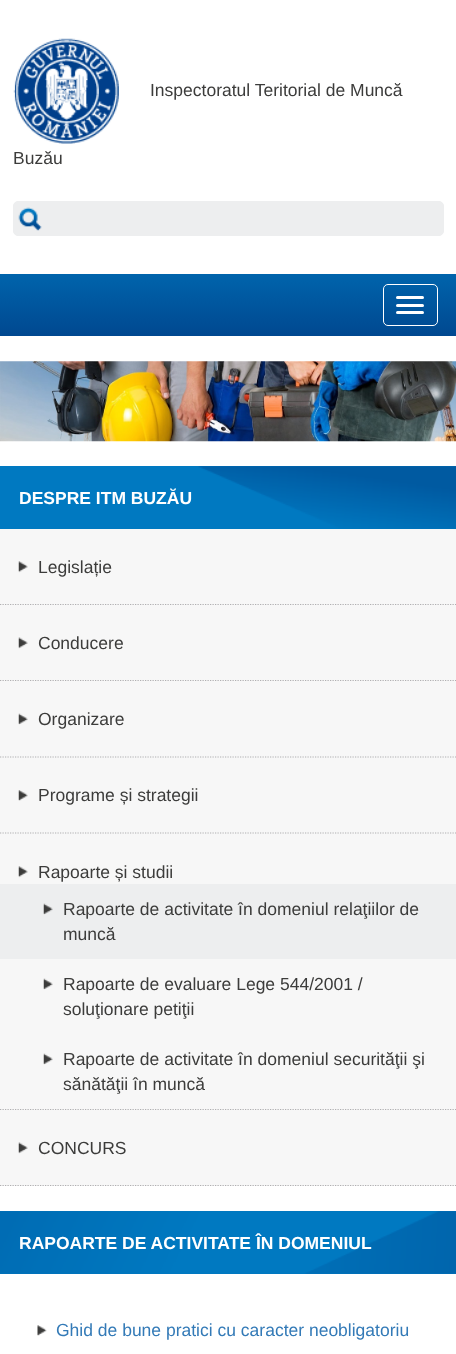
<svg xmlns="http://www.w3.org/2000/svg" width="456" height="1354">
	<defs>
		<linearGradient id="g1" gradientUnits="userSpaceOnUse" x1="228" y1="274" x2="228" y2="336"><stop offset="0" stop-color="#0064AC" /><stop offset="1" stop-color="#004890" /></linearGradient>
	</defs>
	<rect width="100%" height="100%" fill="#FFFFFF" />
	<image x="13" y="38" width="106" height="106" href="assets/img1.png" />
	<g font-family="Liberation Sans" font-size="17.5" fill="#3C3C3B">
		<text x="150" y="96">Inspectoratul Teritorial de Muncă</text>
		<text x="13" y="164">Buzău</text>
	</g>
	<rect x="13.5" y="201.5" width="430" height="34" rx="4.5" fill="#EDEEEF" stroke="#EDEEEF" />
	<image x="18" y="207" width="24" height="24" href="assets/img2.png" />
	<rect x="0" y="274" width="456" height="62" fill="url(#g1)" />
	<rect x="383.5" y="284.5" width="54" height="41" rx="4.5" fill="none" stroke="#FFFFFF" />
	<rect x="396" y="296" width="28" height="3" rx="1.5" fill="#FFFFFF" />
	<rect x="396" y="304" width="28" height="3" rx="1.5" fill="#FFFFFF" />
	<rect x="396" y="311" width="28" height="3" rx="1.5" fill="#FFFFFF" />
	<image x="0" y="361" width="456" height="81" href="assets/img3.png" />
	<rect x="0" y="466" width="456" height="63" fill="#0079C1" />
	<image x="198" y="466" width="258" height="63" href="assets/img4.png" />
	<text x="19" y="504" font-family="Liberation Sans" font-size="17.5" font-weight="700" fill="#FFFFFF">DESPRE ITM BUZĂU</text>
	<rect x="0" y="529" width="456" height="657" fill="#F7F7F7" />
	<image x="18" y="561" width="10" height="12" href="assets/img5.png" />
	<path d="M0 604.5H456" fill="none" stroke="#B0AFB1" stroke-width="1.2" stroke-dasharray="1.25 1.25" />
	<text x="38" y="573" font-family="Liberation Sans" font-size="17.5" fill="#3C3C3B">Legislație</text>
	<image x="18" y="637" width="10" height="12" href="assets/img6.png" />
	<path d="M0 680.5H456" fill="none" stroke="#B0AFB1" stroke-width="1.2" stroke-dasharray="1.25 1.25" />
	<text x="38" y="649" font-family="Liberation Sans" font-size="17.5" fill="#3C3C3B">Conducere</text>
	<image x="18" y="713" width="10" height="12" href="assets/img7.png" />
	<path d="M0 757H456" fill="none" stroke="#B0AFB1" stroke-width="1.2" stroke-dasharray="1.25 1.25" />
	<text x="38" y="725" font-family="Liberation Sans" font-size="17.5" fill="#3C3C3B">Organizare</text>
	<image x="18" y="790" width="10" height="11" href="assets/img8.png" />
	<path d="M0 833H456" fill="none" stroke="#B0AFB1" stroke-width="1.2" stroke-dasharray="1.25 1.25" />
	<text x="38" y="801" font-family="Liberation Sans" font-size="17.5" fill="#3C3C3B">Programe și strategii</text>
	<image x="18" y="866" width="10" height="12" href="assets/img5.png" />
	<path d="M0 1109.5H456" fill="none" stroke="#B0AFB1" stroke-width="1.2" stroke-dasharray="1.25 1.25" />
	<text x="38" y="878" font-family="Liberation Sans" font-size="17.5" fill="#3C3C3B">Rapoarte și studii</text>
	<rect x="0" y="884" width="456" height="75" fill="#EDEEEF" />
	<image x="43" y="903" width="10" height="12" href="assets/img9.png" />
	<g font-family="Liberation Sans" font-size="17.5" fill="#3C3C3B">
		<text x="63" y="915">Rapoarte de activitate în domeniul relaţiilor de</text>
		<text x="63" y="940">muncă</text>
	</g>
	<image x="43" y="978" width="10" height="12" href="assets/img7.png" />
	<g font-family="Liberation Sans" font-size="17.5" fill="#3C3C3B">
		<text x="63" y="990">Rapoarte de evaluare Lege 544/2001 /</text>
		<text x="63" y="1015">soluţionare petiţii</text>
	</g>
	<image x="43" y="1053" width="10" height="12" href="assets/img7.png" />
	<g font-family="Liberation Sans" font-size="17.5" fill="#3C3C3B">
		<text x="63" y="1065">Rapoarte de activitate în domeniul securităţii şi</text>
		<text x="63" y="1090">sănătăţii în muncă</text>
	</g>
	<image x="18" y="1142" width="10" height="12" href="assets/img6.png" />
	<path d="M0 1185.5H456" fill="none" stroke="#B0AFB1" stroke-width="1.2" stroke-dasharray="1.25 1.25" />
	<text x="38" y="1154" font-family="Liberation Sans" font-size="17.5" fill="#3C3C3B">CONCURS</text>
	<rect x="0" y="1211" width="456" height="63" fill="#0079C1" />
	<image x="0" y="1211" width="456" height="63" href="assets/img10.png" />
	<text x="19" y="1249" font-family="Liberation Sans" font-size="17.5" font-weight="700" fill="#FFFFFF">RAPOARTE DE ACTIVITATE ÎN DOMENIUL</text>
	<image x="37" y="1325" width="10" height="11" href="assets/img11.png" />
	<text x="56" y="1336" font-family="Liberation Sans" font-size="17.5" fill="#337AB7">Ghid de bune pratici cu caracter neobligatoriu</text>
</svg>
